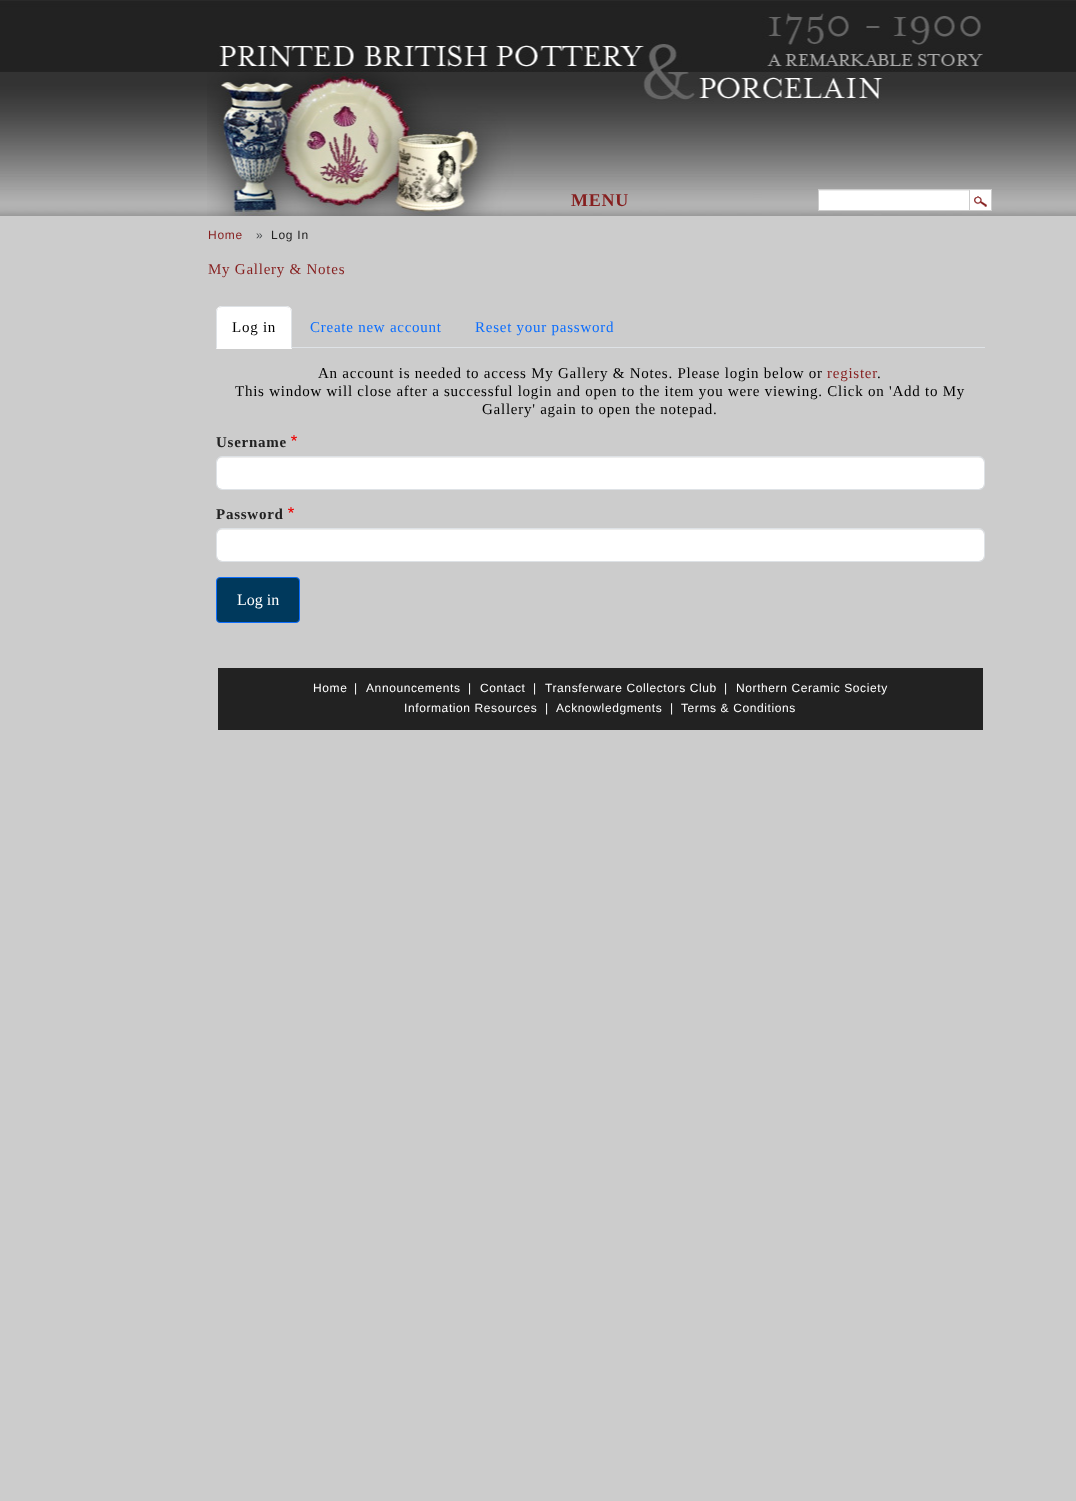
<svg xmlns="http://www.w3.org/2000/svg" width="1076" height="1501">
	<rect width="100%" height="100%" fill="#CCCCCC" />
	<image x="0" y="0" width="1076" height="216" href="assets/img1.png" />
	<image x="207" y="13" width="776" height="203" href="assets/img2.png" />
	<text x="571" y="206" font-family="Liberation Serif" font-size="18" font-weight="700" letter-spacing="0.75" fill="#861F1F">MENU</text>
	<rect x="819" y="191" width="150" height="19" fill="#FFFFFF" />
	<rect x="819" y="190" width="150" height="1" fill="#ECECEC" />
	<rect x="818.5" y="189.5" width="151" height="21" fill="none" stroke="#CCCCCC" />
	<rect x="970" y="190" width="21" height="20" fill="#FFFFFF" />
	<image x="974" y="196" width="13" height="11" href="assets/img3.png" />
	<rect x="970" y="189" width="22" height="1" fill="#CCCCCC" />
	<rect x="991" y="189" width="1" height="22" fill="#CCCCCC" />
	<rect x="970" y="210" width="22" height="1" fill="#CCCCCC" />
	<text x="208" y="239" font-family="Liberation Sans" font-size="12" letter-spacing="0.75" fill="#861F1F">Home</text>
	<text x="256" y="239" font-family="Liberation Sans" font-size="12" letter-spacing="0.75" fill="#4C4F52">»</text>
	<text x="271" y="239" font-family="Liberation Sans" font-size="12" letter-spacing="0.75" fill="#222222">Log In</text>
	<text x="208" y="274" font-family="Liberation Serif" font-size="15" letter-spacing="0.75" fill="#861F1F">My Gallery &amp; Notes</text>
	<rect x="292" y="347" width="693" height="1" fill="#DEE2E6" />
	<path d="M222 306H286C289.5 306 292 308.5 292 312V349H216V312C216 308.5 218.5 306 222 306Z" fill="#FFFFFF" />
	<path d="M222 306C220 306 219 307 218 308C219 308 220 307 222 307H286C288 307 289 308 290 308C289 307 288 306 286 306Z" fill="#DEE2E6" />
	<path d="M292 349V312C292 310 291 309 290 308C290 309 291 310 291 312V348Z" fill="#DEE2E6" />
	<path d="M292 349L291 348H217L216 349Z" fill="#FFFFFF" />
	<path d="M216 349L217 348V312C217 310 218 309 218 308C217 309 216 310 216 312Z" fill="#DEE2E6" />
	<text x="232" y="332" font-family="Liberation Serif" font-size="15" letter-spacing="0.75" fill="#000000">Log in</text>
	<g font-family="Liberation Serif" font-size="15" letter-spacing="0.75" fill="#0D6EFD">
		<text x="310" y="332">Create new account</text>
		<text x="475" y="332">Reset your password</text>
	</g>
	<text x="318" y="378" font-family="Liberation Serif" font-size="15" letter-spacing="0.75" fill="#000000">An account is needed to access My Gallery &amp; Notes. Please login below or</text>
	<text x="827" y="378" font-family="Liberation Serif" font-size="15" letter-spacing="0.75" fill="#861F1F">register</text>
	<g font-family="Liberation Serif" font-size="15" letter-spacing="0.75" fill="#000000">
		<text x="877" y="378">.</text>
		<text x="235" y="396">This window will close after a successful login and open to the item you were viewing. Click on 'Add to My</text>
		<text x="482" y="414">Gallery' again to open the notepad.</text>
	</g>
	<text x="216" y="447" font-family="Liberation Serif" font-size="15" font-weight="700" letter-spacing="0.75" fill="#222222">Username</text>
	<image x="291" y="435" width="6" height="6" href="assets/img4.png" />
	<rect x="217" y="457" width="767" height="32" rx="5" fill="#FFFFFF" />
	<path d="M222 458H979C982 458 984 460 984 463V462C984 459 982 457 979 457H222C219 457 217 459 217 462V463C217 460 219 458 222 458Z" fill="#000000" fill-opacity="0.07" />
	<rect x="216.5" y="456.5" width="768" height="33" rx="5.5" fill="none" stroke="#DEE2E6" />
	<text x="216" y="519" font-family="Liberation Serif" font-size="15" font-weight="700" letter-spacing="0.75" fill="#222222">Password</text>
	<image x="288" y="507" width="6" height="6" href="assets/img4.png" />
	<rect x="217" y="529" width="767" height="32" rx="5" fill="#FFFFFF" />
	<path d="M222 530H979C982 530 984 532 984 535V534C984 531 982 529 979 529H222C219 529 217 531 217 534V535C217 532 219 530 222 530Z" fill="#000000" fill-opacity="0.07" />
	<rect x="216.5" y="528.5" width="768" height="33" rx="5.5" fill="none" stroke="#DEE2E6" />
	<rect x="216.5" y="577.5" width="83" height="45" rx="3.5" fill="#00395C" stroke="#0D6EFD" />
	<text x="237" y="605" font-family="Liberation Serif" font-size="16" fill="#FFFFFF">Log in</text>
	<rect x="218" y="668" width="765" height="62" fill="#222222" />
	<g font-family="Liberation Sans" font-size="12" letter-spacing="0.6" fill="#FFFFFF">
		<text x="313" y="692">Home</text>
		<text x="354" y="692">|</text>
		<text x="366" y="692">Announcements</text>
		<text x="468" y="692">|</text>
		<text x="480" y="692">Contact</text>
		<text x="533" y="692">|</text>
		<text x="545" y="692">Transferware Collectors Club</text>
		<text x="724" y="692">|</text>
		<text x="736" y="692">Northern Ceramic Society</text>
		<text x="404" y="712">Information Resources</text>
		<text x="545" y="712">|</text>
		<text x="556" y="712">Acknowledgments</text>
		<text x="670" y="712">|</text>
		<text x="681" y="712">Terms &amp; Conditions</text>
	</g>
</svg>
